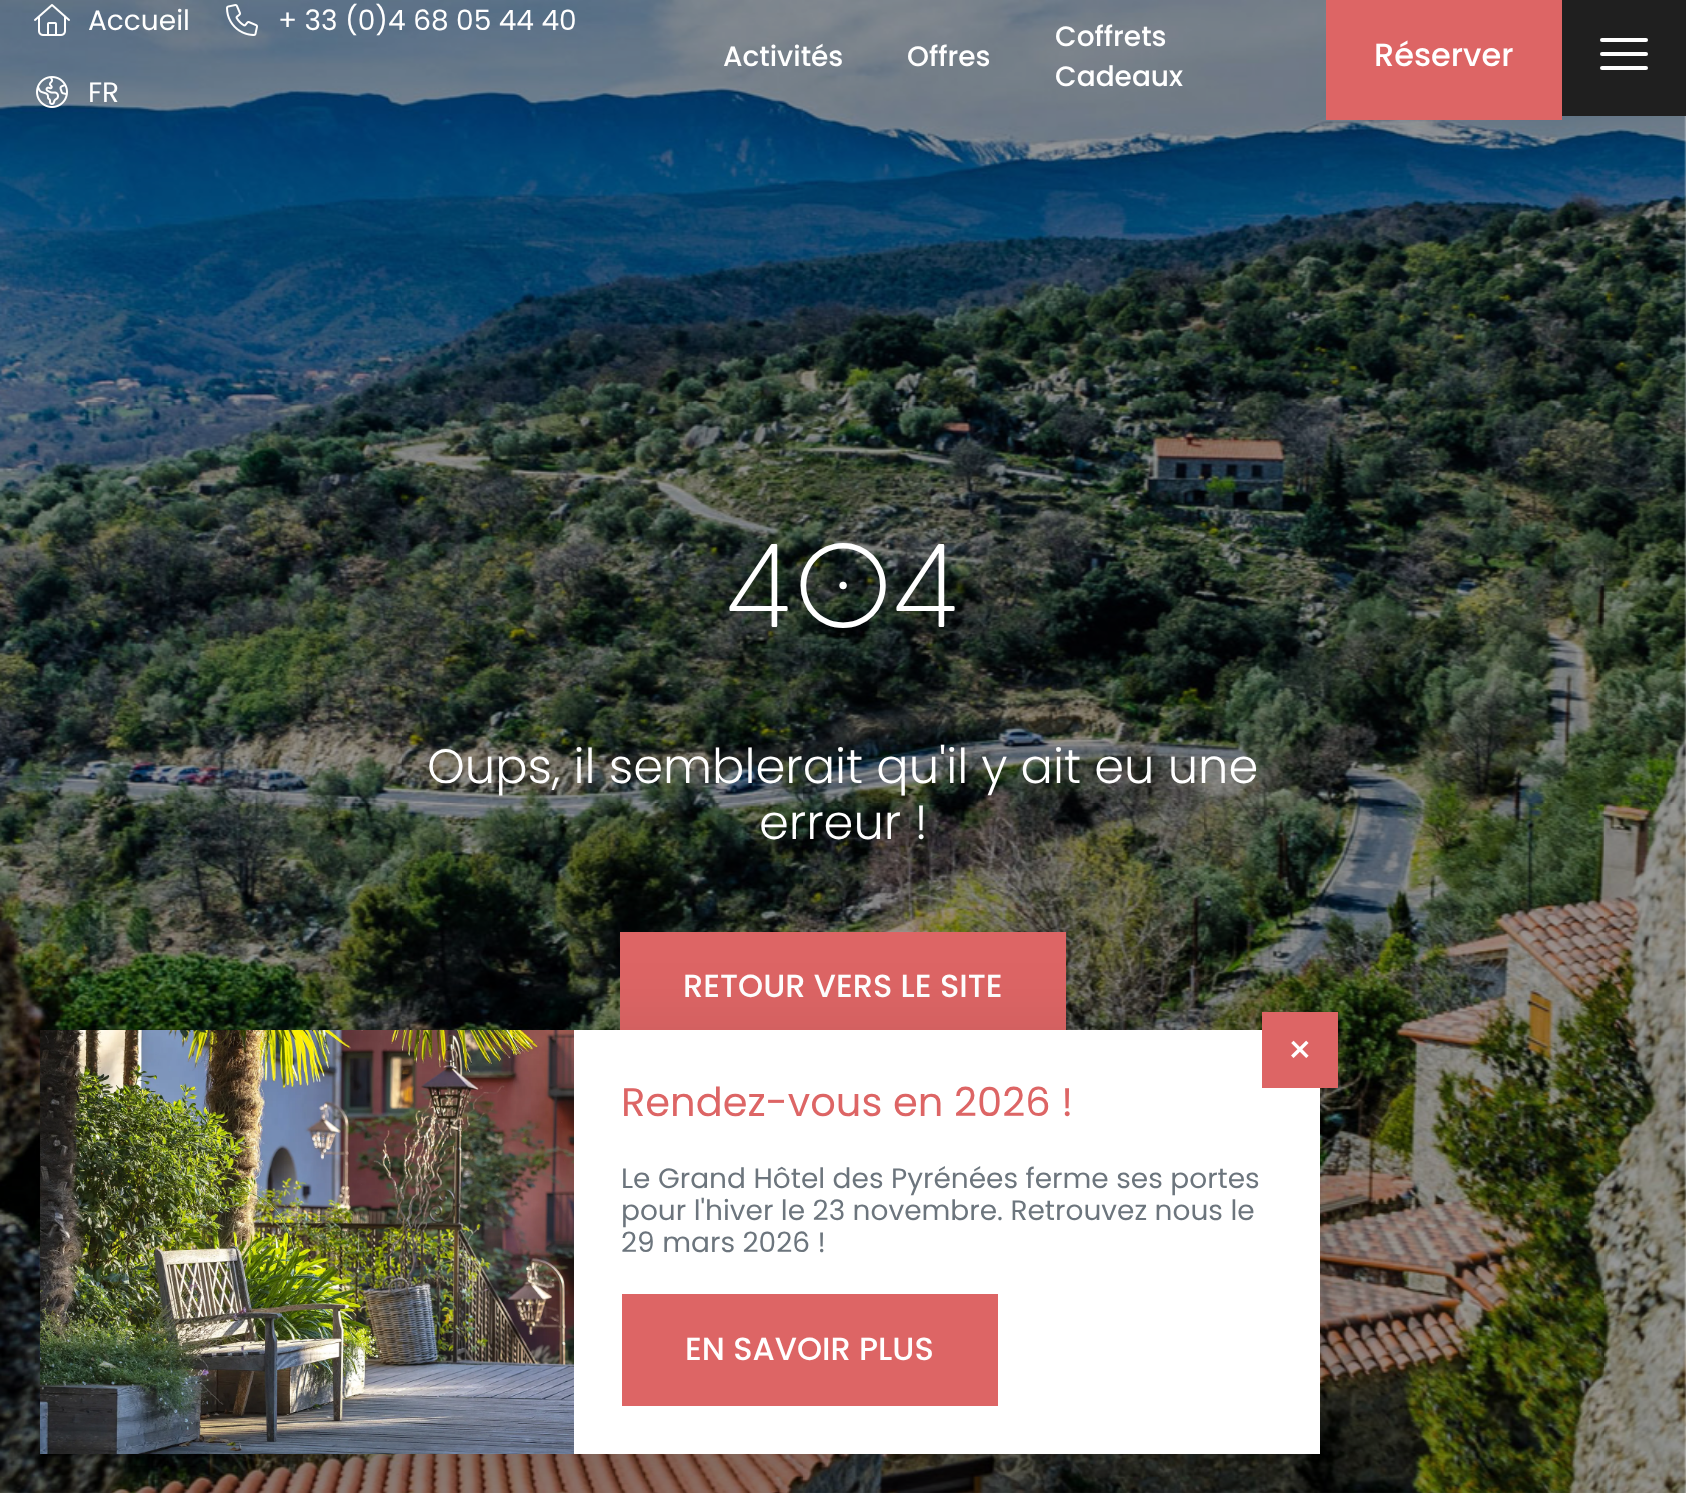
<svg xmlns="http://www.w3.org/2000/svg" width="1686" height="1493">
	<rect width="100%" height="100%" fill="#FFFFFF" />
	<image x="0" y="0" width="1686" height="1493" href="assets/img1.png" />
	<image x="34" y="4" width="36" height="32" href="assets/img2.png" />
	<text x="88" y="30" font-family="Poppins" font-size="28" fill="#FFFFFF">Accueil</text>
	<image x="226" y="4" width="32" height="32" href="assets/img3.png" />
	<text x="278" y="30" font-family="Poppins" font-size="28" fill="#FFFFFF">+ 33 (0)4 68 05 44 40</text>
	<image x="36" y="76" width="32" height="32" href="assets/img4.png" />
	<text x="88" y="102" font-family="Poppins" font-size="28" fill="#FFFFFF">FR</text>
	<g font-family="Poppins" font-size="28" font-weight="500" fill="#FFFFFF">
		<text x="723" y="66">Activités</text>
		<text x="907" y="66">Offres</text>
		<text x="1055" y="46">Coffrets</text>
		<text x="1055" y="86">Cadeaux</text>
	</g>
	<rect x="1326" y="0" width="236" height="120" fill="#DD6565" />
	<text x="1374" y="66" font-family="Poppins" font-size="32" font-weight="500" fill="#FFFFFF">Réserver</text>
	<rect x="1562" y="0" width="124" height="116" fill="#1F1F1F" />
	<rect x="1600" y="38" width="48" height="4" rx="2" fill="#FFFFFF" />
	<rect x="1600" y="52" width="48" height="4" rx="2" fill="#FFFFFF" />
	<rect x="1600" y="66" width="48" height="4" rx="2" fill="#FFFFFF" />
	<text x="725" y="627" font-family="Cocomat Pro" font-size="112" font-weight="300" fill="#FFFFFF">404</text>
	<g font-family="Poppins" font-size="48" font-weight="300" fill="#FFFFFF">
		<text x="427" y="783">Oups, il semblerait qu'il y ait eu une</text>
		<text x="759" y="839">erreur !</text>
	</g>
	<rect x="620" y="932" width="446" height="98" fill="#DD6565" />
	<text x="683" y="997" font-family="Poppins" font-size="32" font-weight="500" fill="#FFFFFF">RETOUR VERS LE SITE</text>
	<rect x="40" y="1062" width="1280" height="424" fill="#000000" fill-opacity="0.18" filter="blur(48px)" />
	<rect x="574" y="1030" width="746" height="424" fill="#FFFFFF" />
	<rect x="1262" y="1012" width="76" height="76" fill="#DD6565" />
	<text x="1287" y="1064" font-family="Poppins" font-size="40" fill="#FFFFFF">×</text>
	<image x="40" y="1030" width="534" height="424" href="assets/img5.png" />
	<text x="621" y="1116" font-family="Poppins" font-size="40" fill="#DD6565">Rendez-vous en 2026 !</text>
	<g font-family="Poppins" font-size="28" fill="#6C757D">
		<text x="621" y="1188">Le Grand Hôtel des Pyrénées ferme ses portes</text>
		<text x="621" y="1220">pour l'hiver le 23 novembre. Retrouvez nous le</text>
		<text x="621" y="1252">29 mars 2026 !</text>
	</g>
	<rect x="622" y="1294" width="376" height="112" fill="#DD6565" />
	<text x="685" y="1360" font-family="Poppins" font-size="32" font-weight="500" fill="#FFFFFF">EN SAVOIR PLUS</text>
</svg>
